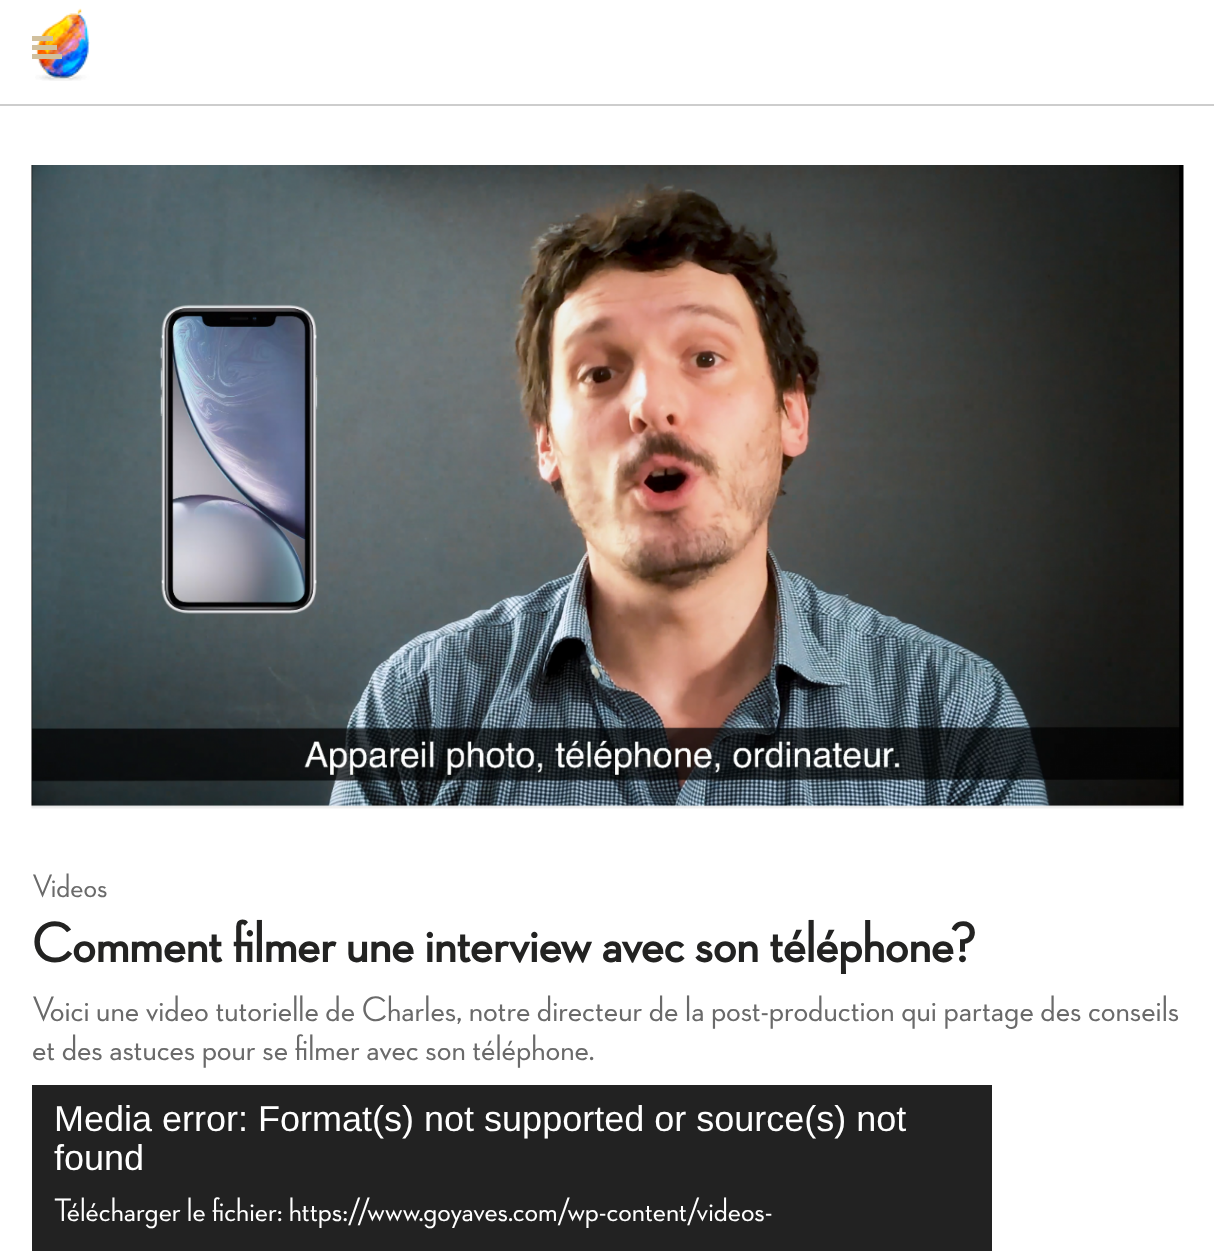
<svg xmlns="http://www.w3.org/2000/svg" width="1214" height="1251">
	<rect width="100%" height="100%" fill="#FFFFFF" />
	<rect x="0" y="104" width="1214" height="2" fill="#CDCDCD" />
	<image x="35" y="8" width="55" height="73" href="assets/img1.png" />
	<rect x="32" y="36" width="21" height="5" fill="#D1C09E" />
	<rect x="32" y="45" width="25" height="5" fill="#D1C09E" />
	<rect x="32" y="54" width="30" height="5" fill="#D1C09E" />
	<image x="31" y="165" width="1153" height="644" href="assets/img2.png" />
	<text x="32" y="897" font-family="'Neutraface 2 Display'" font-size="33" font-weight="500" fill="#6A6A6A">Videos</text>
	<text x="32" y="962" font-family="'Neutraface 2 Display'" font-size="57" font-weight="700" fill="#232322">Comment filmer une interview avec son téléphone?</text>
	<g font-family="'Neutraface 2 Display'" font-size="36" font-weight="500" fill="#6A6A6A">
		<text x="32" y="1021">Voici une video tutorielle de Charles, notre directeur de la post-production qui partage des conseils</text>
		<text x="32" y="1060">et des astuces pour se filmer avec son téléphone.</text>
	</g>
	<rect x="32" y="1085" width="960" height="166" fill="#222222" />
	<g font-family="Liberation Sans" font-size="36" fill="#FFFFFF">
		<text x="54" y="1131">Media error: Format(s) not supported or source(s) not</text>
		<text x="54" y="1170">found</text>
	</g>
	<text x="54" y="1221" font-family="'Neutraface 2 Display'" font-size="33" font-weight="500" fill="#FFFFFF">Télécharger le fichier: https://www.goyaves.com/wp-content/videos-</text>
</svg>
